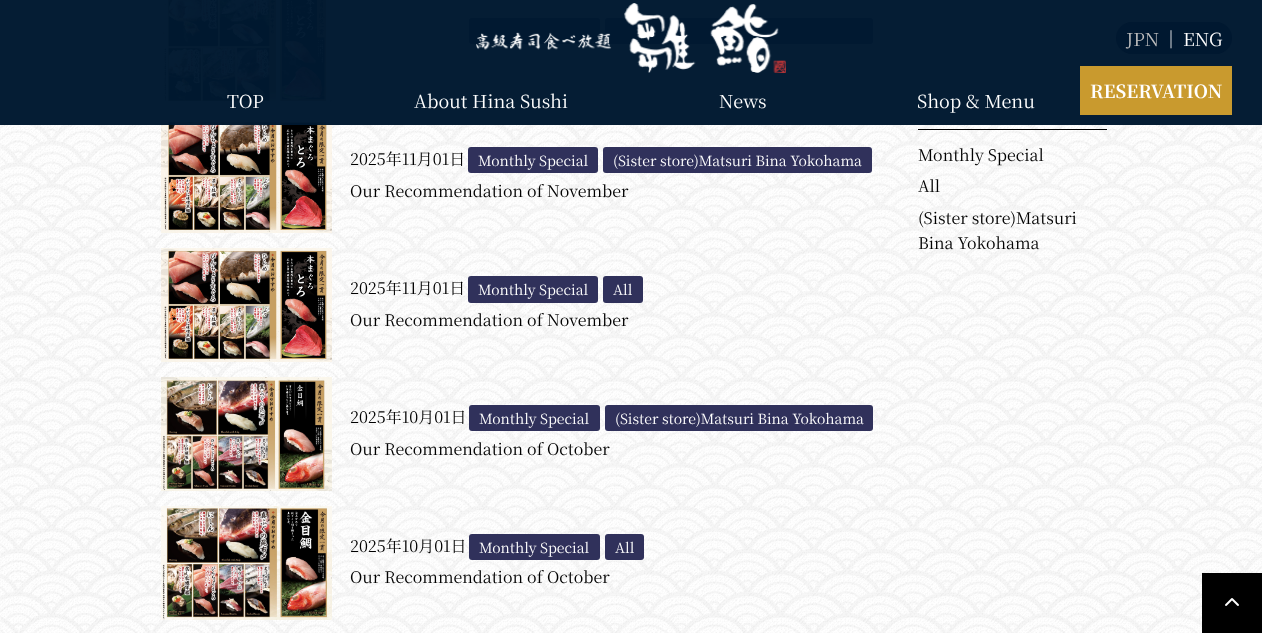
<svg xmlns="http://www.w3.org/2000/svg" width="1262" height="633">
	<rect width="100%" height="100%" fill="#FFFFFF" />
	<image x="0" y="0" width="1262" height="633" href="assets/img2.png" />
	<image x="161" y="0" width="171" height="104" href="assets/img3.png" />
	<rect x="469" y="18" width="131" height="26" rx="3" fill="#30315B" />
	<rect x="605" y="18" width="268" height="26" rx="3" fill="#30315B" />
	<image x="161" y="119" width="171" height="114" href="assets/img4.png" />
	<rect x="0" y="0" width="1262" height="125" fill="#001830" fill-opacity="0.98" />
	<rect x="1116" y="22" width="116" height="32" rx="16" fill="#001830" />
	<text x="1126" y="46" font-family="Noto Serif JP" font-size="18" fill="#BFBFBF">JPN</text>
	<g font-family="Noto Serif JP" font-size="18" fill="#FFFFFF">
		<text x="1162" y="46">│</text>
		<text x="1183" y="46">ENG</text>
	</g>
	<rect x="1080" y="66" width="152" height="49" fill="#C99A2E" />
	<text x="1090" y="98" font-family="Noto Serif JP" font-size="18" font-weight="700" fill="#FFFFFF">RESERVATION</text>
	<image x="476" y="3" width="310" height="70" href="assets/img1.png" />
	<g font-family="Noto Serif JP" font-size="18" fill="#FFFFFF">
		<text x="227" y="108">TOP</text>
		<text x="414" y="108">About Hina Sushi</text>
		<text x="719" y="108">News</text>
		<text x="917" y="108">Shop &amp; Menu</text>
	</g>
	<text x="350" y="165" font-family="Noto Serif JP" font-size="16" fill="#000000">2025年11月01日</text>
	<rect x="468" y="147" width="130" height="26" rx="3" fill="#30315B" />
	<text x="478" y="166" font-family="Noto Serif JP" font-size="14" fill="#FFFFFF">Monthly Special</text>
	<rect x="603" y="147" width="269" height="26" rx="3" fill="#30315B" />
	<text x="613" y="166" font-family="Noto Serif JP" font-size="14" fill="#FFFFFF">(Sister store)Matsuri Bina Yokohama</text>
	<text x="350" y="197" font-family="Noto Serif JP" font-size="16" fill="#000000">Our Recommendation of November</text>
	<image x="161" y="248" width="171" height="114" href="assets/img5.png" />
	<text x="350" y="294" font-family="Noto Serif JP" font-size="16" fill="#000000">2025年11月01日</text>
	<rect x="468" y="276" width="130" height="27" rx="3" fill="#30315B" />
	<text x="478" y="295" font-family="Noto Serif JP" font-size="14" fill="#FFFFFF">Monthly Special</text>
	<rect x="603" y="276" width="40" height="27" rx="3" fill="#30315B" />
	<text x="613" y="295" font-family="Noto Serif JP" font-size="14" fill="#FFFFFF">All</text>
	<text x="350" y="326" font-family="Noto Serif JP" font-size="16" fill="#000000">Our Recommendation of November</text>
	<image x="161" y="377" width="171" height="114" href="assets/img6.png" />
	<text x="350" y="423" font-family="Noto Serif JP" font-size="16" fill="#000000">2025年10月01日</text>
	<rect x="469" y="405" width="131" height="26" rx="3" fill="#30315B" />
	<text x="479" y="424" font-family="Noto Serif JP" font-size="14" fill="#FFFFFF">Monthly Special</text>
	<rect x="605" y="405" width="268" height="26" rx="3" fill="#30315B" />
	<text x="615" y="424" font-family="Noto Serif JP" font-size="14" fill="#FFFFFF">(Sister store)Matsuri Bina Yokohama</text>
	<text x="350" y="455" font-family="Noto Serif JP" font-size="16" fill="#000000">Our Recommendation of October</text>
	<image x="161" y="506" width="171" height="114" href="assets/img7.png" />
	<text x="350" y="552" font-family="Noto Serif JP" font-size="16" fill="#000000">2025年10月01日</text>
	<rect x="469" y="534" width="131" height="26" rx="3" fill="#30315B" />
	<text x="479" y="553" font-family="Noto Serif JP" font-size="14" fill="#FFFFFF">Monthly Special</text>
	<rect x="605" y="534" width="39" height="26" rx="3" fill="#30315B" />
	<text x="615" y="553" font-family="Noto Serif JP" font-size="14" fill="#FFFFFF">All</text>
	<text x="350" y="583" font-family="Noto Serif JP" font-size="16" fill="#000000">Our Recommendation of October</text>
	<rect x="918" y="129" width="189" height="1" fill="#000000" />
	<g font-family="Noto Serif JP" font-size="16" fill="#000000">
		<text x="918" y="161">Monthly Special</text>
		<text x="918" y="192">All</text>
		<text x="918" y="224">(Sister store)Matsuri</text>
		<text x="918" y="249">Bina Yokohama</text>
	</g>
	<rect x="1202" y="573" width="60" height="60" fill="#000000" />
	<image x="1225" y="598" width="14" height="8" href="assets/img8.png" />
</svg>
